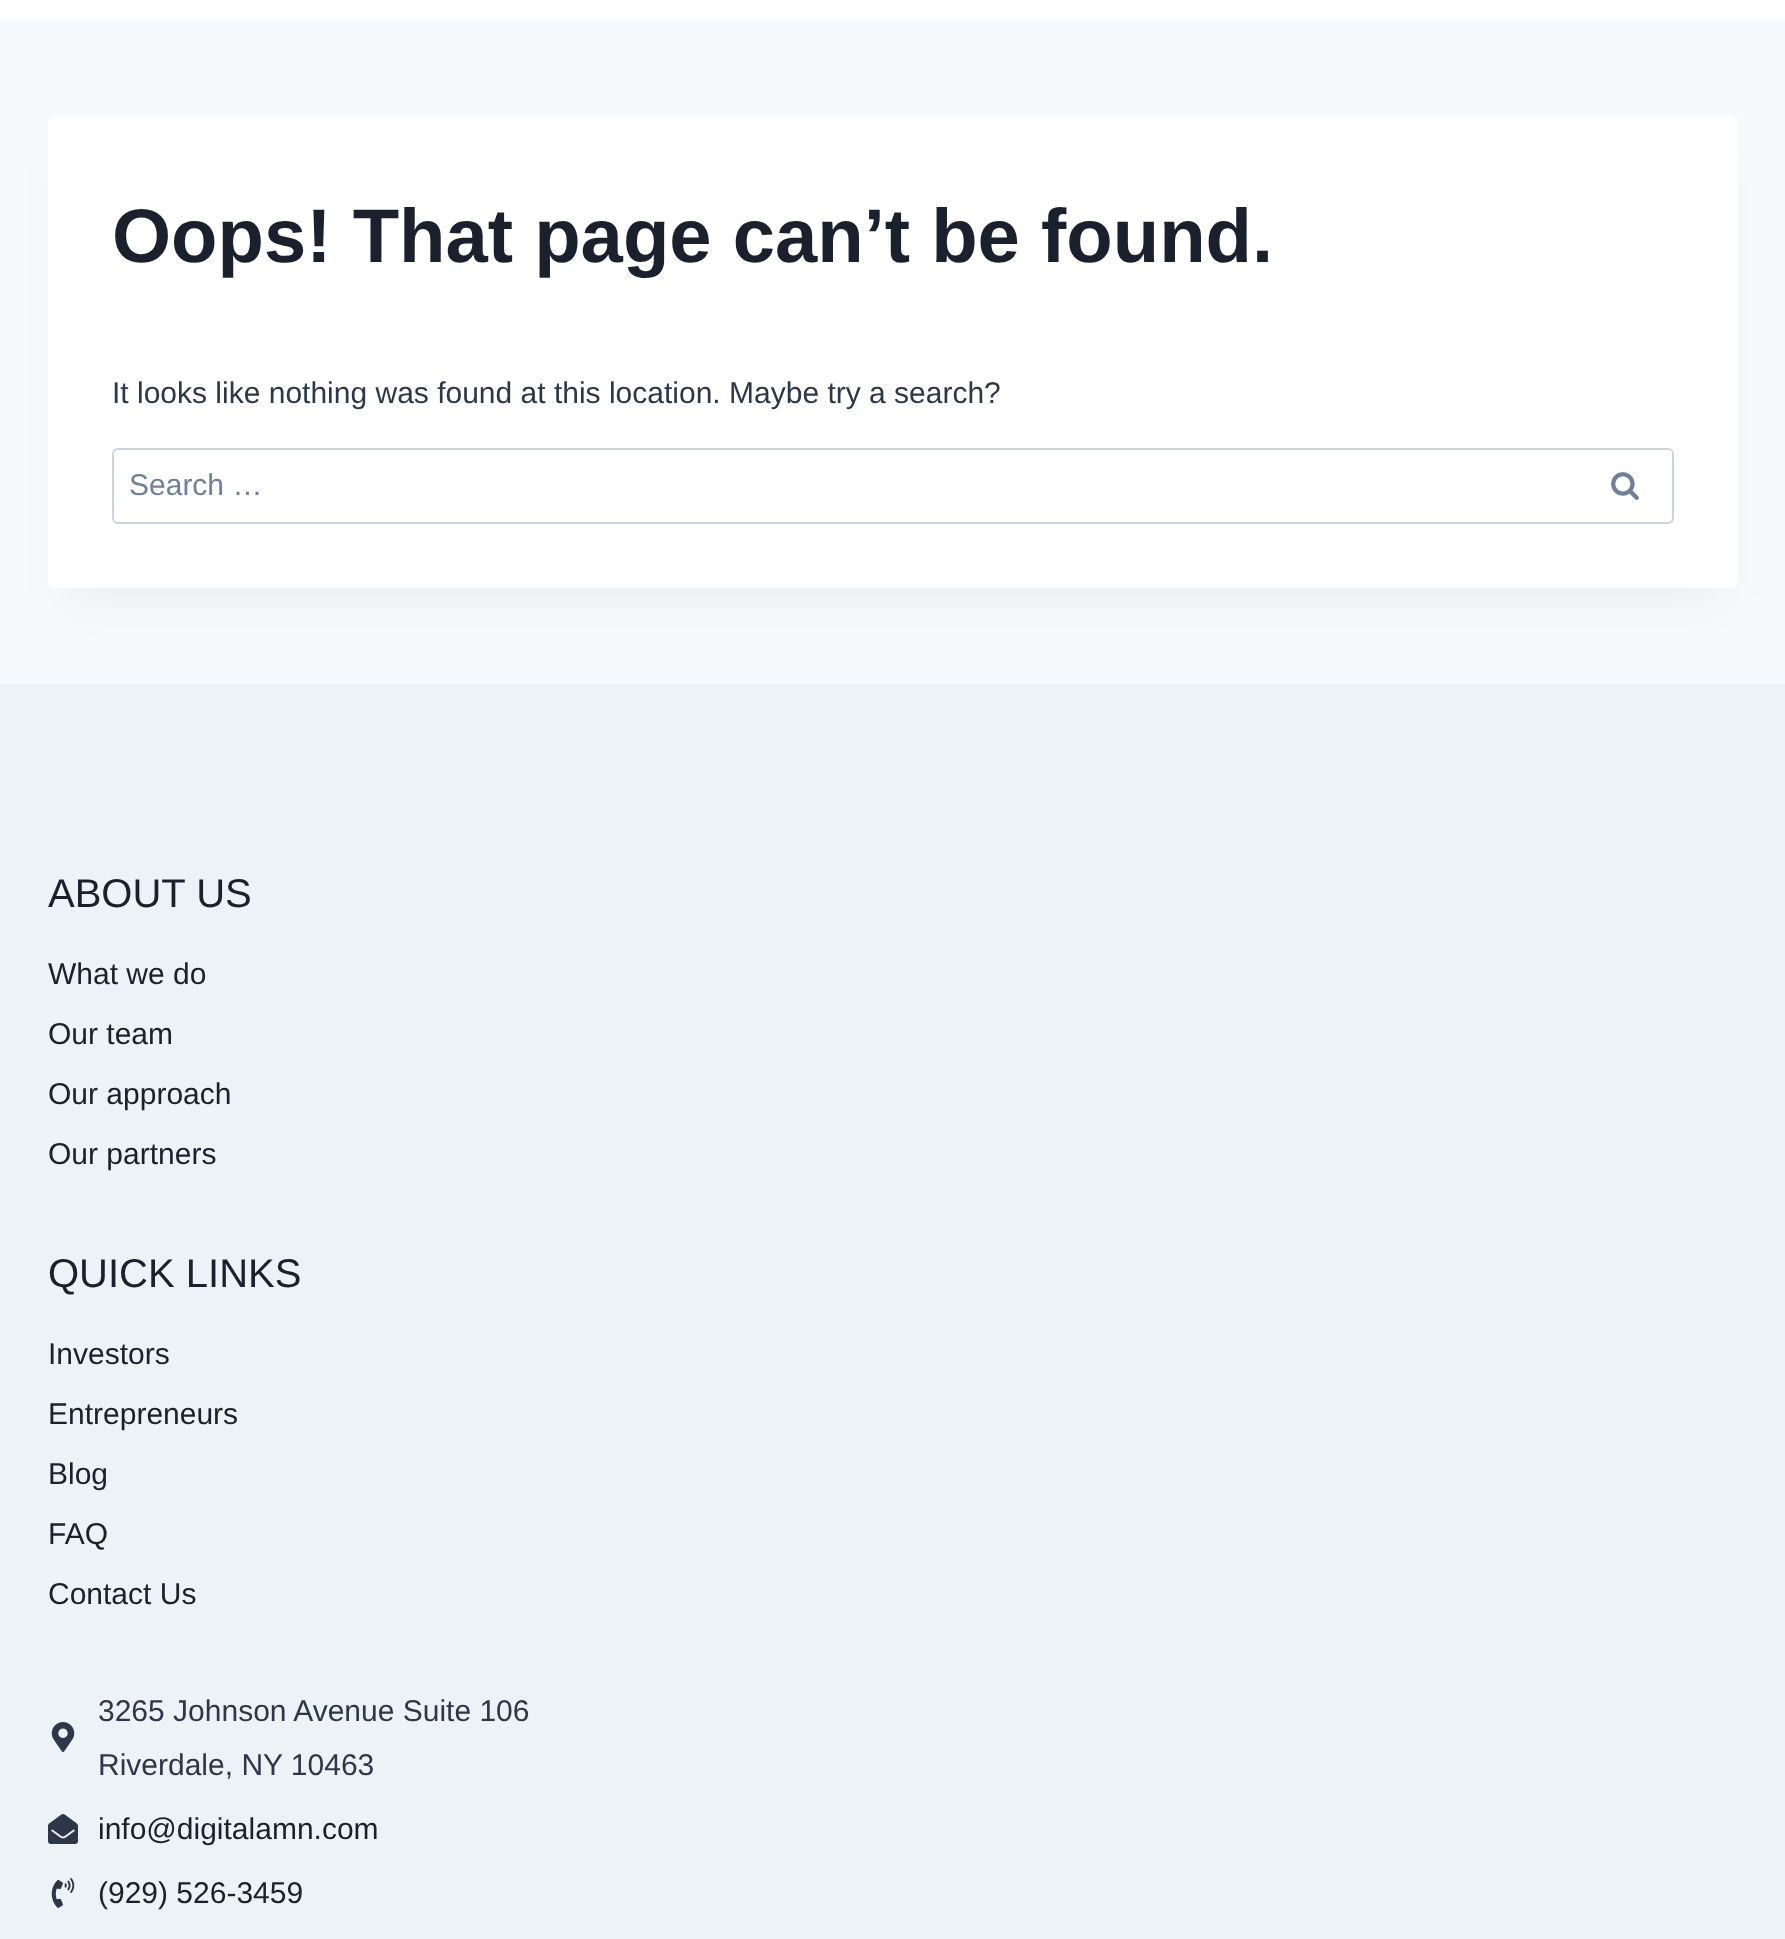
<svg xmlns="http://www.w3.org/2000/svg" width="1785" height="1939">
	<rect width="100%" height="100%" fill="#F7FAFC" />
	<rect x="0" y="0" width="1785" height="20" fill="#FFFFFF" />
	<rect x="68" y="166" width="1650" height="432" fill="#000000" fill-opacity="0.05" filter="blur(25px)" />
	<rect x="48" y="116" width="1690" height="472" rx="8" fill="#FFFFFF" />
	<text x="112" y="262" font-family="Liberation Sans" font-size="76" font-weight="700" fill="#1A202C">Oops! That page can’t be found.</text>
	<text x="112" y="403" font-family="Liberation Sans" font-size="30" fill="#2D3748">It looks like nothing was found at this location. Maybe try a search?</text>
	<rect x="113" y="449" width="1560" height="74" rx="5" fill="none" stroke="#CBD5E0" stroke-width="2" />
	<text x="129" y="495" font-family="Liberation Sans" font-size="30" fill="#718096">Search …</text>
	<image x="1611" y="472" width="28" height="28" href="assets/img1.png" />
	<rect x="0" y="684" width="1785" height="1255" fill="#EDF2F7" />
	<text x="48" y="907" font-family="Liberation Sans" font-size="40" fill="#1A202C">ABOUT US</text>
	<g font-family="Liberation Sans" font-size="30" fill="#1A202C">
		<text x="48" y="984">What we do</text>
		<text x="48" y="1044">Our team</text>
		<text x="48" y="1104">Our approach</text>
		<text x="48" y="1164">Our partners</text>
	</g>
	<text x="48" y="1287" font-family="Liberation Sans" font-size="40" fill="#1A202C">QUICK LINKS</text>
	<g font-family="Liberation Sans" font-size="30" fill="#1A202C">
		<text x="48" y="1364">Investors</text>
		<text x="48" y="1424">Entrepreneurs</text>
		<text x="48" y="1484">Blog</text>
		<text x="48" y="1544">FAQ</text>
		<text x="48" y="1604">Contact Us</text>
	</g>
	<image x="51" y="1722" width="24" height="30" href="assets/img2.png" />
	<g font-family="Liberation Sans" font-size="30" fill="#2D3748">
		<text x="98" y="1721">3265 Johnson Avenue Suite 106</text>
		<text x="98" y="1775">Riverdale, NY 10463</text>
	</g>
	<image x="48" y="1814" width="30" height="30" href="assets/img3.png" />
	<text x="98" y="1839" font-family="Liberation Sans" font-size="30" fill="#1A202C">info@digitalamn.com</text>
	<image x="51" y="1878" width="24" height="30" href="assets/img4.png" />
	<text x="98" y="1903" font-family="Liberation Sans" font-size="30" fill="#1A202C">(929) 526-3459</text>
</svg>
